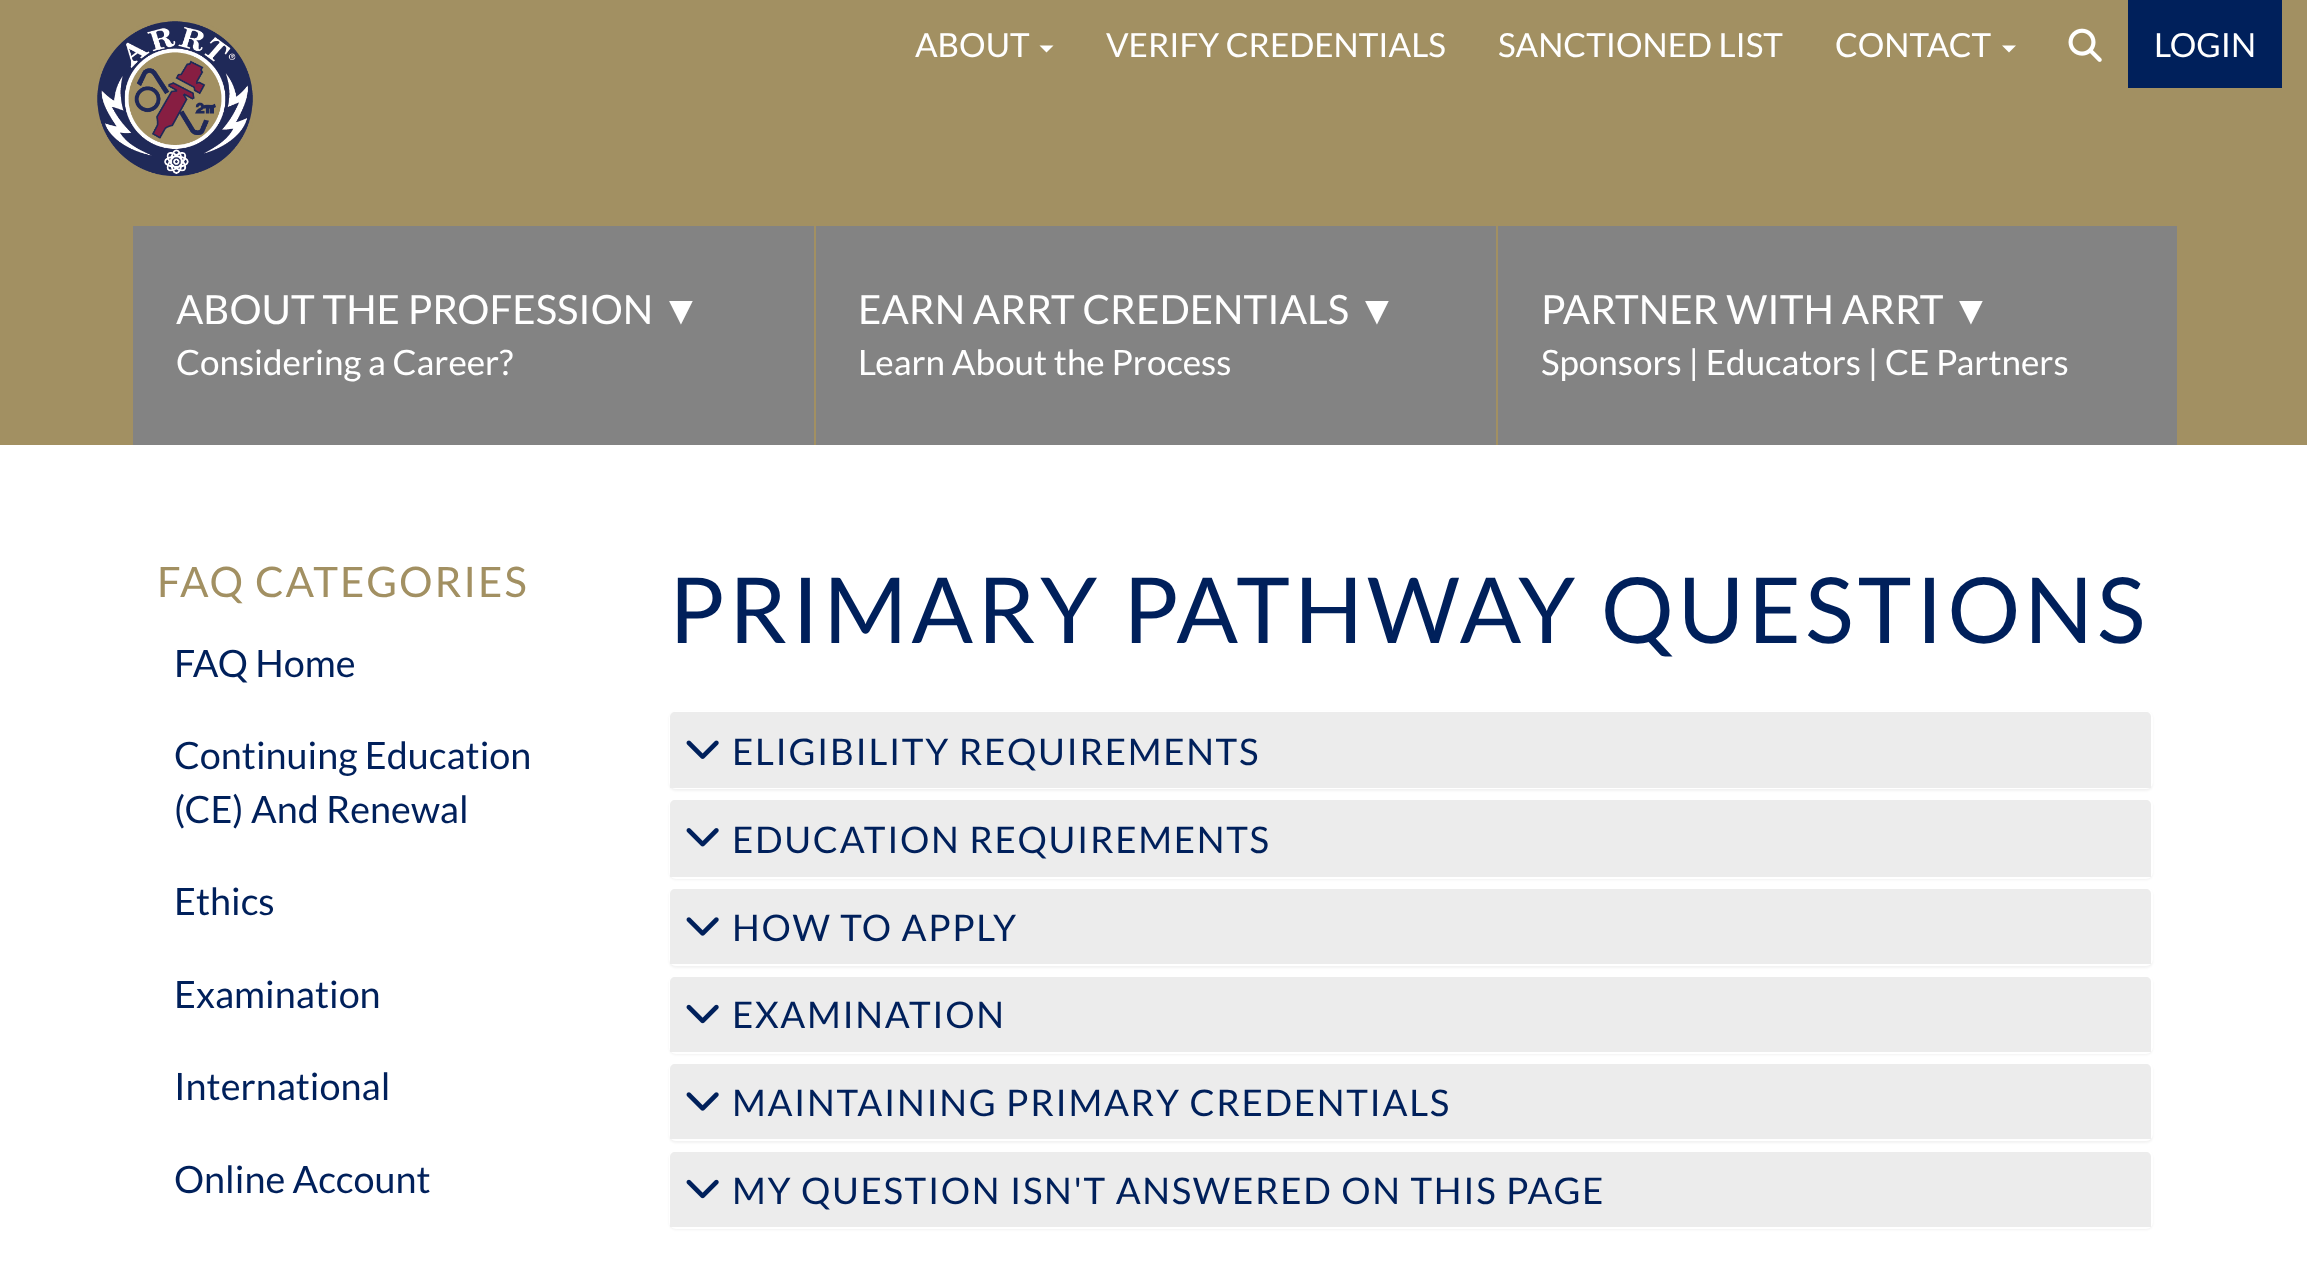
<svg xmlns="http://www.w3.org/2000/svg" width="2307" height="1266">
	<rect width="100%" height="100%" fill="#FFFFFF" />
	<rect x="0" y="0" width="2307" height="445" fill="#A29062" />
	<image x="97" y="21" width="156" height="155" href="assets/img1.png" />
	<text x="915" y="57" font-family="Lato" font-size="33.25" fill="#FFFFFF">ABOUT</text>
	<path d="M1039.5 45.5H1053.5L1046.5 52.5Z" fill="#FFFFFF" />
	<g font-family="Lato" font-size="33.25" fill="#FFFFFF">
		<text x="1106" y="57">VERIFY CREDENTIALS</text>
		<text x="1498" y="57">SANCTIONED LIST</text>
		<text x="1835" y="57">CONTACT</text>
	</g>
	<path d="M2002 45.5H2016L2009 52.5Z" fill="#FFFFFF" />
	<image x="2068" y="28" width="34" height="34" href="assets/img2.png" />
	<rect x="2128" y="0" width="154" height="88" fill="#00205B" />
	<text x="2154" y="57" font-family="Lato" font-size="33.25" fill="#FFFFFF">LOGIN</text>
	<rect x="133" y="226" width="2044" height="219" fill="#838383" />
	<text x="176" y="324" font-family="Lato" font-size="40.25" fill="#FFFFFF">ABOUT THE PROFESSION</text>
	<text x="661" y="324" font-family="Liberation Sans" font-size="40.25" fill="#FFFFFF">▼</text>
	<text x="176" y="375" font-family="Lato" font-size="35" fill="#FFFFFF">Considering a Career?</text>
	<rect x="814" y="226" width="2" height="219" fill="#A29062" />
	<text x="858" y="324" font-family="Lato" font-size="40.25" fill="#FFFFFF">EARN ARRT CREDENTIALS</text>
	<text x="1357" y="324" font-family="Liberation Sans" font-size="40.25" fill="#FFFFFF">▼</text>
	<text x="858" y="375" font-family="Lato" font-size="35" fill="#FFFFFF">Learn About the Process</text>
	<rect x="1496" y="226" width="2" height="219" fill="#A29062" />
	<text x="1541" y="324" font-family="Lato" font-size="40.25" fill="#FFFFFF">PARTNER WITH ARRT</text>
	<text x="1951" y="324" font-family="Liberation Sans" font-size="40.25" fill="#FFFFFF">▼</text>
	<text x="1541" y="375" font-family="Lato" font-size="35" fill="#FFFFFF">Sponsors | Educators | CE Partners</text>
	<text x="157" y="597" font-family="Lato" font-size="42" letter-spacing="1.9" fill="#A29062">FAQ CATEGORIES</text>
	<g font-family="Lato" font-size="37.75" fill="#00205B">
		<text x="174" y="677">FAQ Home</text>
		<text x="174" y="769">Continuing Education</text>
		<text x="174" y="823">(CE) And Renewal</text>
		<text x="174" y="915">Ethics</text>
		<text x="174" y="1008">Examination</text>
		<text x="174" y="1100">International</text>
		<text x="174" y="1193">Online Account</text>
	</g>
	<text x="669" y="643" font-family="Lato" font-size="91" letter-spacing="4.1" fill="#00205B">PRIMARY PATHWAY QUESTIONS</text>
	<rect x="669" y="712" width="1484" height="79" rx="7" fill="#000000" fill-opacity="0.05" filter="blur(1px)" />
	<rect x="669" y="711" width="1484" height="78" rx="7" fill="#FFFFFF" />
	<path d="M675 712H2146C2149 712 2151 714 2151 717V788H670V717C670 714 672 712 675 712Z" fill="#ECECEC" />
	<image x="686" y="740" width="33" height="19" href="assets/img3.png" />
	<text x="732" y="765" font-family="Lato" font-size="36.75" letter-spacing="1.65" fill="#00205B">ELIGIBILITY REQUIREMENTS</text>
	<rect x="669" y="800" width="1484" height="80" rx="7" fill="#000000" fill-opacity="0.05" filter="blur(1px)" />
	<rect x="669" y="798" width="1484" height="81" rx="7" fill="#FFFFFF" />
	<path d="M675 800H2146C2149 800 2151 802 2151 805V877H670V805C670 802 672 800 675 800Z" fill="#ECECEC" />
	<image x="686" y="828" width="33" height="19" href="assets/img4.png" />
	<text x="732" y="853" font-family="Lato" font-size="36.75" letter-spacing="1.65" fill="#00205B">EDUCATION REQUIREMENTS</text>
	<rect x="669" y="889" width="1484" height="79" rx="7" fill="#000000" fill-opacity="0.05" filter="blur(1px)" />
	<rect x="669" y="887" width="1484" height="79" rx="7" fill="#FFFFFF" />
	<path d="M675 889H2146C2149 889 2151 891 2151 894V964H670V894C670 891 672 889 675 889Z" fill="#ECECEC" />
	<image x="686" y="917" width="33" height="19" href="assets/img5.png" />
	<text x="732" y="941" font-family="Lato" font-size="36.75" letter-spacing="1.65" fill="#00205B">HOW TO APPLY</text>
	<rect x="669" y="977" width="1484" height="78" rx="7" fill="#000000" fill-opacity="0.05" filter="blur(1px)" />
	<rect x="669" y="975" width="1484" height="79" rx="7" fill="#FFFFFF" />
	<path d="M675 977H2146C2149 977 2151 979 2151 982V1052H670V982C670 979 672 977 675 977Z" fill="#ECECEC" />
	<image x="686" y="1004" width="33" height="20" href="assets/img6.png" />
	<text x="732" y="1028" font-family="Lato" font-size="36.75" letter-spacing="1.65" fill="#00205B">EXAMINATION</text>
	<rect x="669" y="1064" width="1484" height="79" rx="7" fill="#000000" fill-opacity="0.05" filter="blur(1px)" />
	<rect x="669" y="1062" width="1484" height="79" rx="7" fill="#FFFFFF" />
	<path d="M675 1064H2146C2149 1064 2151 1066 2151 1069V1139H670V1069C670 1066 672 1064 675 1064Z" fill="#ECECEC" />
	<image x="686" y="1092" width="33" height="19" href="assets/img5.png" />
	<text x="732" y="1116" font-family="Lato" font-size="36.75" letter-spacing="1.65" fill="#00205B">MAINTAINING PRIMARY CREDENTIALS</text>
	<rect x="669" y="1152" width="1484" height="78" rx="7" fill="#000000" fill-opacity="0.05" filter="blur(1px)" />
	<rect x="669" y="1150" width="1484" height="79" rx="7" fill="#FFFFFF" />
	<path d="M675 1152H2146C2149 1152 2151 1154 2151 1157V1227H670V1157C670 1154 672 1152 675 1152Z" fill="#ECECEC" />
	<image x="686" y="1179" width="33" height="20" href="assets/img6.png" />
	<text x="732" y="1204" font-family="Lato" font-size="36.75" letter-spacing="1.65" fill="#00205B">MY QUESTION ISN'T ANSWERED ON THIS PAGE</text>
</svg>
